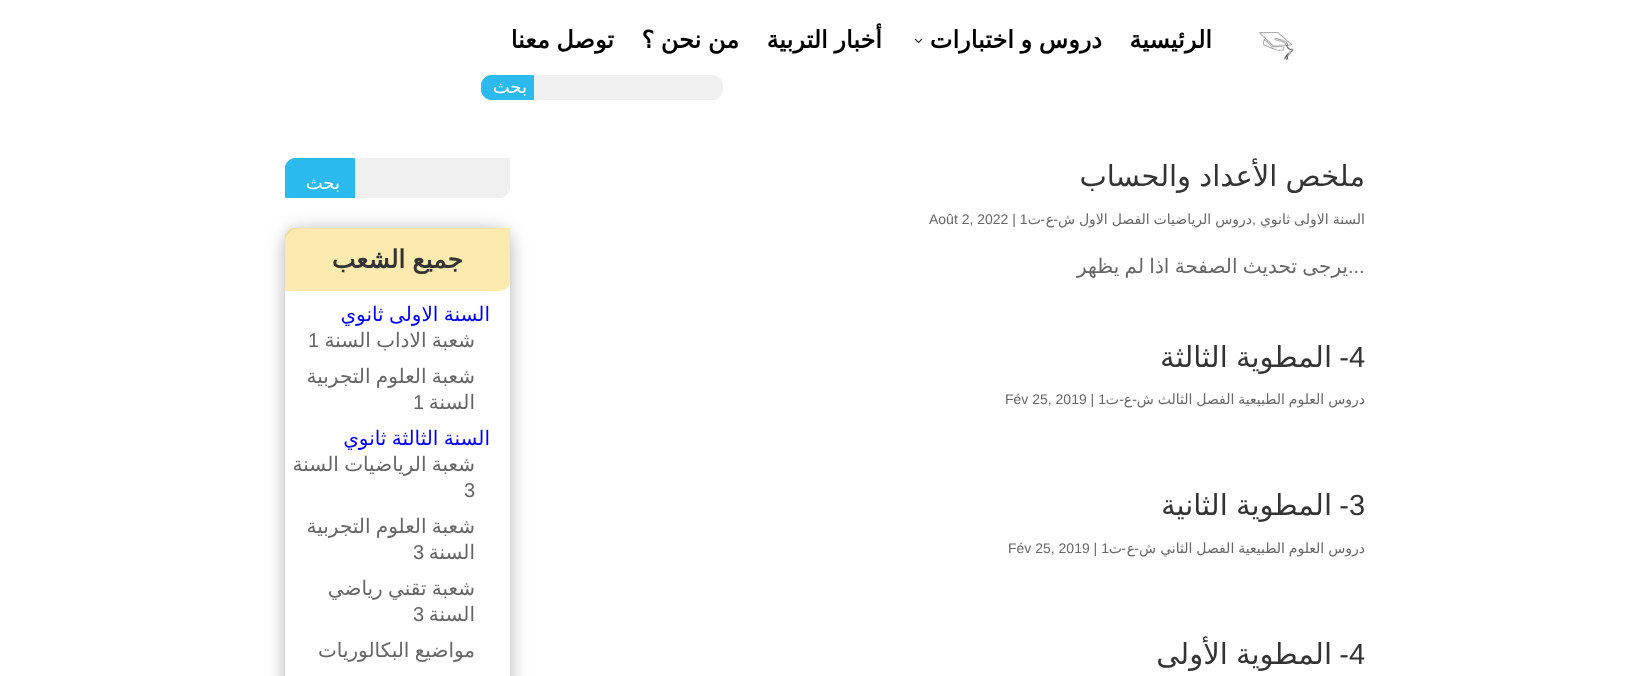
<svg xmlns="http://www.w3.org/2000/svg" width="1650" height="676">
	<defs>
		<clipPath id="clip1"><path d="M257 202H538V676H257ZM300 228H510V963C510 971.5 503.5 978 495 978H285V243C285 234.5 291.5 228 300 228Z" clip-rule="evenodd" /></clipPath>
	</defs>
	<rect width="100%" height="100%" fill="#FFFFFF" />
	<image x="1259" y="32" width="35" height="28" href="assets/img1.png" />
	<g font-family="DejaVu Sans" font-size="24" font-weight="700" direction="rtl" fill="#000000">
		<text x="1212" y="48">الرئيسية</text>
		<text x="1102" y="48" word-spacing="-1">دروس و اختبارات</text>
	</g>
	<image x="914" y="38" width="9" height="5" href="assets/img2.png" />
	<g font-family="DejaVu Sans" font-size="24" font-weight="700" direction="rtl" fill="#000000">
		<text x="882" y="48" word-spacing="-1">أخبار التربية</text>
		<text x="739" y="48" word-spacing="-1">من نحن ؟</text>
		<text x="614" y="48" word-spacing="-1">توصل معنا</text>
	</g>
	<path d="M534.5 75.5H713C718 75.5 722.5 80 722.5 85V90C722.5 95 718 99.5 713 99.5H534.5Z" fill="#F0F0F0" stroke="#F0F0F0" />
	<path d="M491 75.5H533.5V99.5H491C486 99.5 481.5 95 481.5 90V85C481.5 80 486 75.5 491 75.5Z" fill="#2CB9EE" stroke="#2CB9EE" />
	<text x="527" y="93" font-family="DejaVu Sans" font-size="18" direction="rtl" fill="#FFFFFF">بحث</text>
	<text x="1365" y="186" word-spacing="-1" font-family="DejaVu Sans" font-size="29" direction="rtl" fill="#333333">ملخص الأعداد والحساب</text>
	<text x="1365" y="224" word-spacing="-0.5" font-family="DejaVu Sans" font-size="14" direction="rtl" fill="#666666">السنة الاولى ثانوي</text>
	<text x="1252" y="224" font-family="Liberation Sans" font-size="14" fill="#666666">,</text>
	<text x="1252" y="224" word-spacing="-0.5" font-family="DejaVu Sans" font-size="14" direction="rtl" fill="#666666">دروس الرياضيات الفصل الاول ش</text>
	<text x="1058" y="224" font-family="Liberation Sans" font-size="14" direction="rtl" fill="#666666">-</text>
	<text x="1054" y="224" font-family="DejaVu Sans" font-size="14" direction="rtl" fill="#666666">ع</text>
	<text x="1045" y="224" font-family="Liberation Sans" font-size="14" direction="rtl" fill="#666666">-</text>
	<text x="1041" y="224" font-family="DejaVu Sans" font-size="14" direction="rtl" fill="#666666">ت</text>
	<text x="929" y="224" font-family="Liberation Sans" font-size="14" fill="#666666">Août 2, 2022 | 1</text>
	<text x="1348" y="273" word-spacing="-1" font-family="DejaVu Sans" font-size="20" direction="rtl" fill="#666666">يرجى تحديث الصفحة اذا لم يظهر</text>
	<text x="1348" y="273" font-family="Liberation Sans" font-size="20" fill="#666666">...</text>
	<text x="1349" y="367" font-family="Liberation Sans" font-size="29" fill="#333333">4</text>
	<text x="1349" y="367" font-family="Liberation Sans" font-size="29" direction="rtl" fill="#333333">-</text>
	<text x="1332" y="367" word-spacing="-1" font-family="DejaVu Sans" font-size="29" direction="rtl" fill="#333333">المطوية الثالثة</text>
	<g font-family="DejaVu Sans" font-size="14" direction="rtl" fill="#666666">
		<text x="1365" y="404" word-spacing="-0.5">دروس العلوم الطبيعية الفصل الثالث ش</text>
		<text x="1132" y="404">ع</text>
	</g>
	<g font-family="Liberation Sans" font-size="14" direction="rtl" fill="#666666">
		<text x="1137" y="404">-</text>
		<text x="1124" y="404">-</text>
	</g>
	<text x="1119" y="404" font-family="DejaVu Sans" font-size="14" direction="rtl" fill="#666666">ت</text>
	<text x="1005" y="404" font-family="Liberation Sans" font-size="14" fill="#666666">Fév 25, 2019 | 1</text>
	<text x="1349" y="515" font-family="Liberation Sans" font-size="29" fill="#333333">3</text>
	<text x="1349" y="515" font-family="Liberation Sans" font-size="29" direction="rtl" fill="#333333">-</text>
	<text x="1332" y="515" word-spacing="-1" font-family="DejaVu Sans" font-size="29" direction="rtl" fill="#333333">المطوية الثانية</text>
	<text x="1365" y="553" word-spacing="-0.5" font-family="DejaVu Sans" font-size="14" direction="rtl" fill="#666666">دروس العلوم الطبيعية الفصل الثاني ش</text>
	<text x="1139" y="553" font-family="Liberation Sans" font-size="14" direction="rtl" fill="#666666">-</text>
	<text x="1135" y="553" font-family="DejaVu Sans" font-size="14" direction="rtl" fill="#666666">ع</text>
	<text x="1126" y="553" font-family="Liberation Sans" font-size="14" direction="rtl" fill="#666666">-</text>
	<text x="1122" y="553" font-family="DejaVu Sans" font-size="14" direction="rtl" fill="#666666">ت</text>
	<text x="1008" y="553" font-family="Liberation Sans" font-size="14" fill="#666666">Fév 25, 2019 | 1</text>
	<text x="1349" y="664" font-family="Liberation Sans" font-size="29" fill="#333333">4</text>
	<text x="1349" y="664" font-family="Liberation Sans" font-size="29" direction="rtl" fill="#333333">-</text>
	<text x="1332" y="664" word-spacing="-1" font-family="DejaVu Sans" font-size="29" direction="rtl" fill="#333333">المطوية الأولى</text>
	<path d="M295 158.5H509.5V188C509.5 193 505 197.5 500 197.5H285.5V168C285.5 163 290 158.5 295 158.5Z" fill="#F0F0F0" stroke="#F0F0F0" />
	<path d="M295 158.5H354.5V197.5H285.5V168C285.5 163 290 158.5 295 158.5Z" fill="#2CB9EE" stroke="#2CB9EE" />
	<text x="340" y="189" font-family="DejaVu Sans" font-size="18" direction="rtl" fill="#FFFFFF">بحث</text>
	<g clip-path="url(#clip1)">
		<rect x="285" y="230" width="225" height="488" rx="15" fill="#000000" fill-opacity="0.3" filter="blur(9px)" />
	</g>
	<path d="M295 228H510V281C510 286.5 505.5 291 500 291H285V238C285 232.5 289.5 228 295 228Z" fill="#F7BD04" fill-opacity="0.32" />
	<rect x="285.5" y="228.5" width="224" height="62" fill="none" stroke="#F7BD04" stroke-opacity="0.04" />
	<text x="463" y="268" word-spacing="-1" font-family="DejaVu Sans" font-size="25" font-weight="700" direction="rtl" fill="#333333">جميع الشعب</text>
	<text x="490" y="321" word-spacing="-1" font-family="DejaVu Sans" font-size="20" direction="rtl" fill="#0000FF">السنة الاولى ثانوي</text>
	<text x="475" y="347" word-spacing="-1" font-family="DejaVu Sans" font-size="20" direction="rtl" fill="#666666">شعبة الاداب السنة</text>
	<text x="308" y="347" font-family="Liberation Sans" font-size="20" fill="#666666">1</text>
	<g font-family="DejaVu Sans" font-size="20" direction="rtl" fill="#666666">
		<text x="475" y="383" word-spacing="-1">شعبة العلوم التجربية</text>
		<text x="475" y="409">السنة</text>
	</g>
	<text x="413" y="409" font-family="Liberation Sans" font-size="20" fill="#666666">1</text>
	<text x="490" y="445" word-spacing="-1" font-family="DejaVu Sans" font-size="20" direction="rtl" fill="#0000FF">السنة الثالثة ثانوي</text>
	<text x="475" y="471" word-spacing="-1" font-family="DejaVu Sans" font-size="20" direction="rtl" fill="#666666">شعبة الرياضيات السنة</text>
	<text x="464" y="497" font-family="Liberation Sans" font-size="20" fill="#666666">3</text>
	<g font-family="DejaVu Sans" font-size="20" direction="rtl" fill="#666666">
		<text x="475" y="533" word-spacing="-1">شعبة العلوم التجربية</text>
		<text x="475" y="559">السنة</text>
	</g>
	<text x="413" y="559" font-family="Liberation Sans" font-size="20" fill="#666666">3</text>
	<g font-family="DejaVu Sans" font-size="20" direction="rtl" fill="#666666">
		<text x="475" y="595" word-spacing="-1">شعبة تقني رياضي</text>
		<text x="475" y="621">السنة</text>
	</g>
	<text x="413" y="621" font-family="Liberation Sans" font-size="20" fill="#666666">3</text>
	<text x="475" y="657" word-spacing="-1" font-family="DejaVu Sans" font-size="20" direction="rtl" fill="#666666">مواضيع البكالوريات</text>
</svg>
